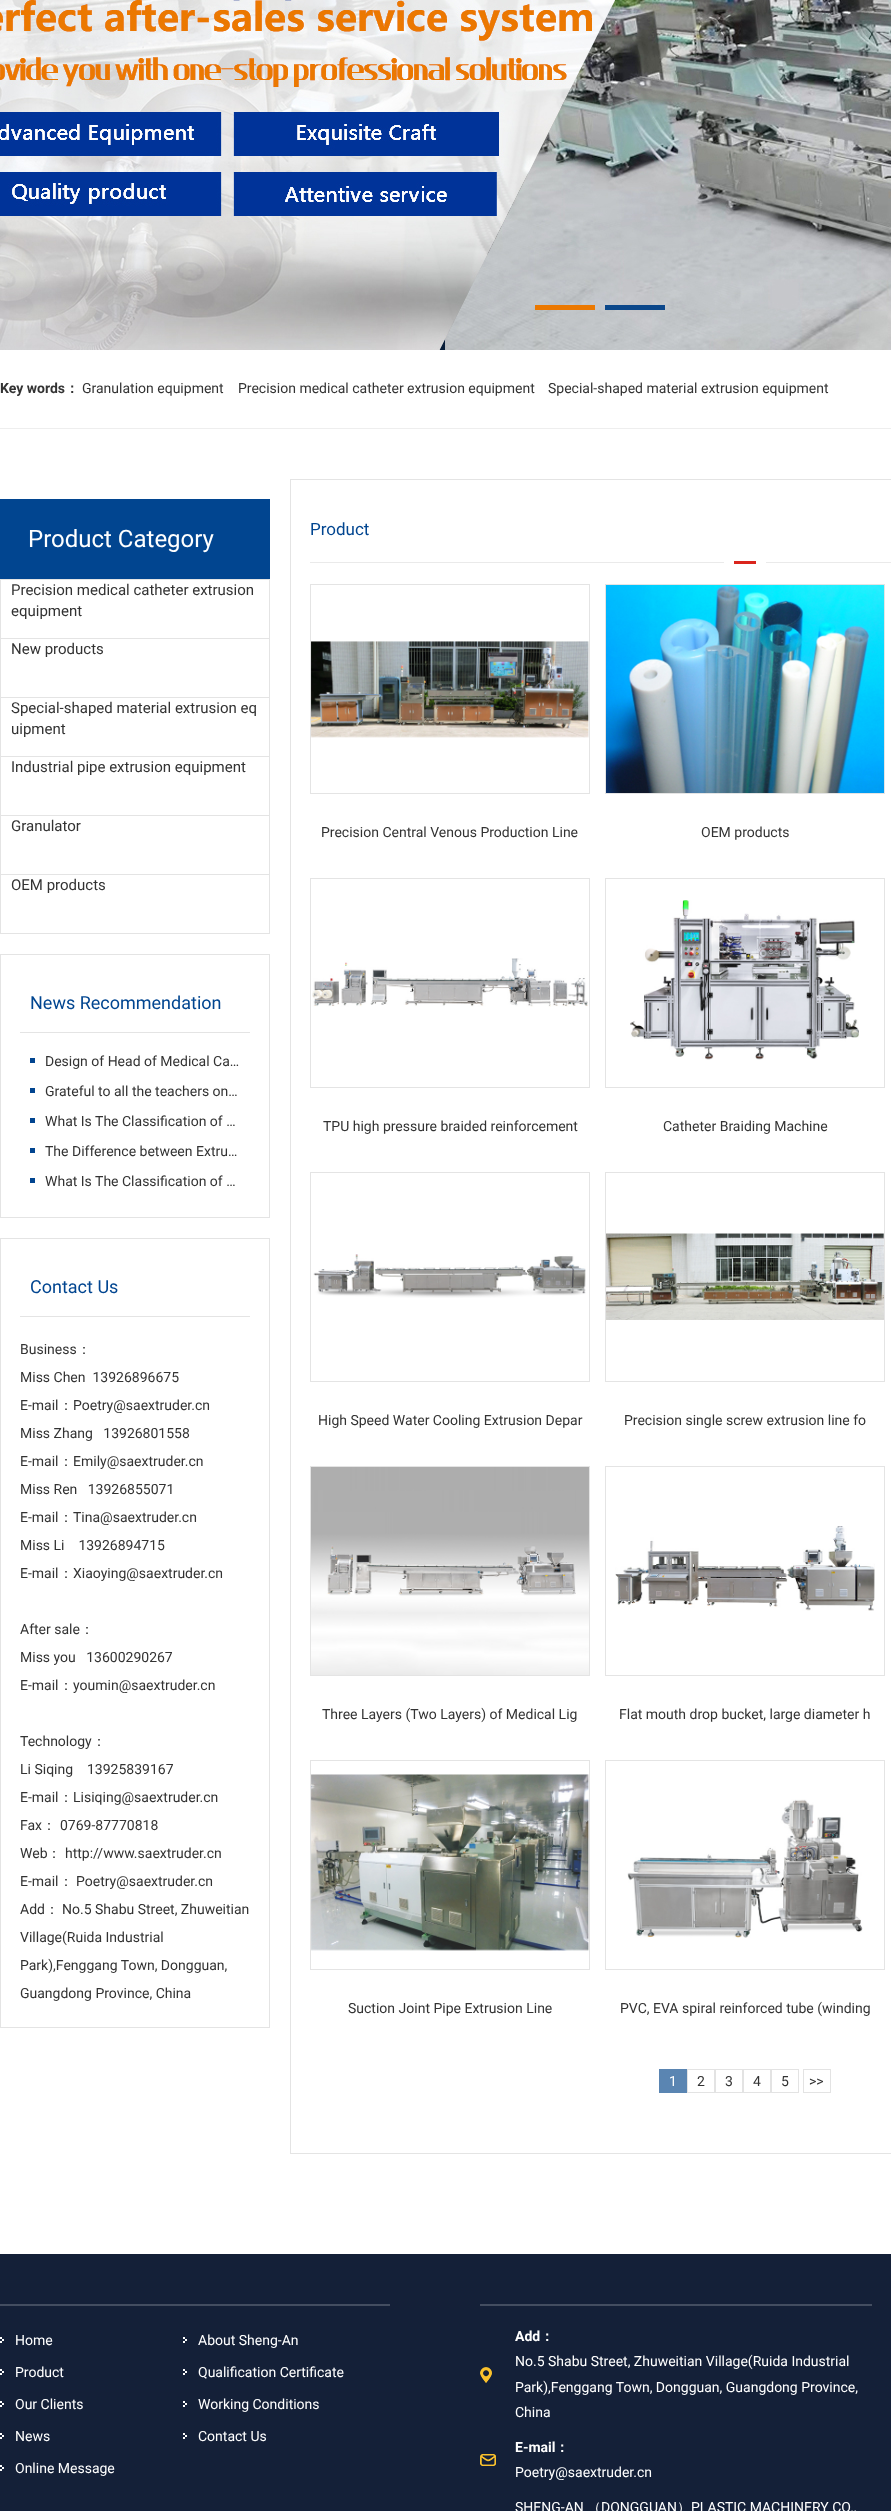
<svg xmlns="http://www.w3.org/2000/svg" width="891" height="2511">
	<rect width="100%" height="100%" fill="#FFFFFF" />
	<image x="0" y="0" width="891" height="350" href="assets/img1.png" />
	<rect x="535" y="305" width="60" height="5" fill="#EB7800" />
	<rect x="605" y="305" width="60" height="5" fill="#0B478A" />
	<rect x="0" y="428" width="891" height="1" fill="#EEEEEE" />
	<text x="0" y="393" font-family="Roboto" font-size="14" font-weight="700" fill="#333333">Key words</text>
	<text x="65" y="393" font-family="WenQuanYi Zen Hei" font-size="14" font-weight="700" fill="#333333">：</text>
	<g font-family="Roboto" font-size="14" fill="#333333">
		<text x="82" y="393">Granulation equipment</text>
		<text x="238" y="393">Precision medical catheter extrusion equipment</text>
		<text x="548" y="393">Special-shaped material extrusion equipment</text>
	</g>
	<rect x="0" y="499" width="270" height="80" fill="#014590" />
	<text x="28" y="547" font-family="Roboto" font-size="24" fill="#FFFFFF">Product Category</text>
	<rect x="269" y="579" width="1" height="355" fill="#E4E4E4" />
	<rect x="0" y="933" width="270" height="1" fill="#E4E4E4" />
	<rect x="0" y="579" width="1" height="355" fill="#E4E4E4" />
	<rect x="1" y="579" width="268" height="1" fill="#E4E4E4" />
	<g font-family="Roboto" font-size="15" fill="#333333">
		<text x="11" y="595">Precision medical catheter extrusion</text>
		<text x="11" y="616">equipment</text>
	</g>
	<rect x="1" y="638" width="268" height="1" fill="#E4E4E4" />
	<text x="11" y="654" font-family="Roboto" font-size="15" fill="#333333">New products</text>
	<rect x="1" y="697" width="268" height="1" fill="#E4E4E4" />
	<g font-family="Roboto" font-size="15" fill="#333333">
		<text x="11" y="713">Special-shaped material extrusion eq</text>
		<text x="11" y="734">uipment</text>
	</g>
	<rect x="1" y="756" width="268" height="1" fill="#E4E4E4" />
	<text x="11" y="772" font-family="Roboto" font-size="15" fill="#333333">Industrial pipe extrusion equipment</text>
	<rect x="1" y="815" width="268" height="1" fill="#E4E4E4" />
	<text x="11" y="831" font-family="Roboto" font-size="15" fill="#333333">Granulator</text>
	<rect x="1" y="874" width="268" height="1" fill="#E4E4E4" />
	<text x="11" y="890" font-family="Roboto" font-size="15" fill="#333333">OEM products</text>
	<rect x="0.5" y="954.5" width="269" height="263" fill="none" stroke="#E4E4E4" />
	<rect x="20" y="1032" width="230" height="1" fill="#E4E4E4" />
	<text x="30" y="1009" font-family="Roboto" font-size="18" fill="#014590">News Recommendation</text>
	<rect x="30" y="1058" width="5" height="5" fill="#014590" />
	<text x="45" y="1066" font-family="Roboto" font-size="14" fill="#333333">Design of Head of Medical Ca…</text>
	<rect x="30" y="1088" width="5" height="5" fill="#014590" />
	<text x="45" y="1096" font-family="Roboto" font-size="14" fill="#333333">Grateful to all the teachers on…</text>
	<rect x="30" y="1118" width="5" height="5" fill="#014590" />
	<text x="45" y="1126" font-family="Roboto" font-size="14" fill="#333333">What Is The Classification of …</text>
	<rect x="30" y="1148" width="5" height="5" fill="#014590" />
	<text x="45" y="1156" font-family="Roboto" font-size="14" fill="#333333">The Difference between Extru…</text>
	<rect x="30" y="1178" width="5" height="5" fill="#014590" />
	<text x="45" y="1186" font-family="Roboto" font-size="14" fill="#333333">What Is The Classification of …</text>
	<rect x="0.5" y="1238.5" width="269" height="789" fill="none" stroke="#E4E4E4" />
	<rect x="20" y="1316" width="230" height="1" fill="#E4E4E4" />
	<text x="30" y="1293" font-family="Roboto" font-size="18" fill="#014590">Contact Us</text>
	<text x="20" y="1354" font-family="Roboto" font-size="14" fill="#333333">Business</text>
	<text x="77" y="1354" font-family="WenQuanYi Zen Hei" font-size="14" font-weight="500" fill="#333333">：</text>
	<g font-family="Roboto" font-size="14" fill="#333333">
		<text x="20" y="1382" xml:space="preserve">Miss Chen  13926896675</text>
		<text x="20" y="1410">E-mail</text>
	</g>
	<text x="59" y="1410" font-family="WenQuanYi Zen Hei" font-size="14" font-weight="500" fill="#333333">：</text>
	<g font-family="Roboto" font-size="14" fill="#333333">
		<text x="73" y="1410">Poetry@saextruder.cn</text>
		<text x="20" y="1438" xml:space="preserve">Miss Zhang   13926801558</text>
		<text x="20" y="1466">E-mail</text>
	</g>
	<text x="59" y="1466" font-family="WenQuanYi Zen Hei" font-size="14" font-weight="500" fill="#333333">：</text>
	<g font-family="Roboto" font-size="14" fill="#333333">
		<text x="73" y="1466">Emily@saextruder.cn</text>
		<text x="20" y="1494" xml:space="preserve">Miss Ren   13926855071</text>
		<text x="20" y="1522">E-mail</text>
	</g>
	<text x="59" y="1522" font-family="WenQuanYi Zen Hei" font-size="14" font-weight="500" fill="#333333">：</text>
	<g font-family="Roboto" font-size="14" fill="#333333">
		<text x="73" y="1522">Tina@saextruder.cn</text>
		<text x="20" y="1550" xml:space="preserve">Miss Li    13926894715</text>
		<text x="20" y="1578">E-mail</text>
	</g>
	<text x="59" y="1578" font-family="WenQuanYi Zen Hei" font-size="14" font-weight="500" fill="#333333">：</text>
	<g font-family="Roboto" font-size="14" fill="#333333">
		<text x="73" y="1578">Xiaoying@saextruder.cn</text>
		<text x="20" y="1634">After sale</text>
	</g>
	<text x="80" y="1634" font-family="WenQuanYi Zen Hei" font-size="14" font-weight="500" fill="#333333">：</text>
	<g font-family="Roboto" font-size="14" fill="#333333">
		<text x="20" y="1662" xml:space="preserve">Miss you   13600290267</text>
		<text x="20" y="1690">E-mail</text>
	</g>
	<text x="59" y="1690" font-family="WenQuanYi Zen Hei" font-size="14" font-weight="500" fill="#333333">：</text>
	<g font-family="Roboto" font-size="14" fill="#333333">
		<text x="73" y="1690">youmin@saextruder.cn</text>
		<text x="20" y="1746">Technology</text>
	</g>
	<text x="92" y="1746" font-family="WenQuanYi Zen Hei" font-size="14" font-weight="500" fill="#333333">：</text>
	<g font-family="Roboto" font-size="14" fill="#333333">
		<text x="20" y="1774" xml:space="preserve">Li Siqing    13925839167</text>
		<text x="20" y="1802">E-mail</text>
	</g>
	<text x="59" y="1802" font-family="WenQuanYi Zen Hei" font-size="14" font-weight="500" fill="#333333">：</text>
	<g font-family="Roboto" font-size="14" fill="#333333">
		<text x="73" y="1802">Lisiqing@saextruder.cn</text>
		<text x="20" y="1830">Fax</text>
	</g>
	<text x="42" y="1830" font-family="WenQuanYi Zen Hei" font-size="14" font-weight="500" fill="#333333">：</text>
	<g font-family="Roboto" font-size="14" fill="#333333">
		<text x="60" y="1830">0769-87770818</text>
		<text x="20" y="1858">Web</text>
	</g>
	<text x="47" y="1858" font-family="WenQuanYi Zen Hei" font-size="14" font-weight="500" fill="#333333">：</text>
	<g font-family="Roboto" font-size="14" fill="#333333">
		<text x="65" y="1858">http://www.saextruder.cn</text>
		<text x="20" y="1886">E-mail</text>
	</g>
	<text x="59" y="1886" font-family="WenQuanYi Zen Hei" font-size="14" font-weight="500" fill="#333333">：</text>
	<g font-family="Roboto" font-size="14" fill="#333333">
		<text x="76" y="1886">Poetry@saextruder.cn</text>
		<text x="20" y="1914">Add</text>
	</g>
	<text x="45" y="1914" font-family="WenQuanYi Zen Hei" font-size="14" font-weight="500" fill="#333333">：</text>
	<g font-family="Roboto" font-size="14" fill="#333333">
		<text x="62" y="1914">No.5 Shabu Street, Zhuweitian</text>
		<text x="20" y="1942">Village(Ruida Industrial</text>
		<text x="20" y="1970">Park),Fenggang Town, Dongguan,</text>
		<text x="20" y="1998">Guangdong Province, China</text>
	</g>
	<rect x="290.5" y="479.5" width="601" height="1674" fill="none" stroke="#E4E4E4" />
	<text x="310" y="535" font-family="Roboto" font-size="17" fill="#014590">Product</text>
	<image x="310" y="561" width="581" height="3" href="assets/img2.png" />
	<rect x="310.5" y="584.5" width="279" height="209" fill="none" stroke="#E4E4E4" />
	<image x="311" y="641" width="278" height="97" href="assets/img3.png" />
	<text x="321" y="837" font-family="Roboto" font-size="14" fill="#333333">Precision Central Venous Production Line</text>
	<rect x="605.5" y="584.5" width="279" height="209" fill="none" stroke="#E4E4E4" />
	<image x="606" y="585" width="278" height="208" href="assets/img4.png" />
	<text x="701" y="837" font-family="Roboto" font-size="14" fill="#333333">OEM products</text>
	<rect x="310.5" y="878.5" width="279" height="209" fill="none" stroke="#E4E4E4" />
	<image x="312" y="958" width="276" height="49" href="assets/img5.png" />
	<text x="323" y="1131" font-family="Roboto" font-size="14" fill="#333333">TPU high pressure braided reinforcement</text>
	<rect x="605.5" y="878.5" width="279" height="209" fill="none" stroke="#E4E4E4" />
	<image x="630" y="900" width="229" height="160" href="assets/img6.png" />
	<text x="663" y="1131" font-family="Roboto" font-size="14" fill="#333333">Catheter Braiding Machine</text>
	<rect x="310.5" y="1172.5" width="279" height="209" fill="none" stroke="#E4E4E4" />
	<image x="313" y="1254" width="273" height="44" href="assets/img7.png" />
	<text x="318" y="1425" font-family="Roboto" font-size="14" fill="#333333">High Speed Water Cooling Extrusion Depar</text>
	<rect x="605.5" y="1172.5" width="279" height="209" fill="none" stroke="#E4E4E4" />
	<image x="606" y="1233" width="278" height="87" href="assets/img8.png" />
	<text x="624" y="1425" font-family="Roboto" font-size="14" fill="#333333">Precision single screw extrusion line fo</text>
	<rect x="310.5" y="1466.5" width="279" height="209" fill="none" stroke="#E4E4E4" />
	<image x="311" y="1467" width="278" height="208" href="assets/img9.png" />
	<text x="322" y="1719" font-family="Roboto" font-size="14" fill="#333333">Three Layers (Two Layers) of Medical Lig</text>
	<rect x="605.5" y="1466.5" width="279" height="209" fill="none" stroke="#E4E4E4" />
	<image x="615" y="1526" width="260" height="85" href="assets/img10.png" />
	<text x="619" y="1719" font-family="Roboto" font-size="14" fill="#333333">Flat mouth drop bucket, large diameter h</text>
	<rect x="310.5" y="1760.5" width="279" height="209" fill="none" stroke="#E4E4E4" />
	<image x="311" y="1774" width="278" height="177" href="assets/img11.png" />
	<text x="348" y="2013" font-family="Roboto" font-size="14" fill="#333333">Suction Joint Pipe Extrusion Line</text>
	<rect x="605.5" y="1760.5" width="279" height="209" fill="none" stroke="#E4E4E4" />
	<image x="627" y="1799" width="236" height="139" href="assets/img12.png" />
	<text x="620" y="2013" font-family="Roboto" font-size="14" fill="#333333">PVC, EVA spiral reinforced tube (winding</text>
	<rect x="659" y="2069" width="28" height="24" fill="#5A85B2" />
	<text x="669" y="2086" font-family="Roboto" font-size="14" fill="#FFFFFF">1</text>
	<rect x="687.5" y="2069.5" width="27" height="23" fill="none" stroke="#E3E3E3" />
	<text x="697" y="2086" font-family="Roboto" font-size="14" fill="#333333">2</text>
	<rect x="715.5" y="2069.5" width="27" height="23" fill="none" stroke="#E3E3E3" />
	<text x="725" y="2086" font-family="Roboto" font-size="14" fill="#333333">3</text>
	<rect x="743.5" y="2069.5" width="27" height="23" fill="none" stroke="#E3E3E3" />
	<text x="753" y="2086" font-family="Roboto" font-size="14" fill="#333333">4</text>
	<rect x="771.5" y="2069.5" width="27" height="23" fill="none" stroke="#E3E3E3" />
	<text x="781" y="2086" font-family="Roboto" font-size="14" fill="#333333">5</text>
	<rect x="803.5" y="2069.5" width="27" height="23" fill="none" stroke="#E3E3E3" />
	<text x="809" y="2086" font-family="Roboto" font-size="14" fill="#333333">&gt;&gt;</text>
	<rect x="0" y="2254" width="891" height="257" fill="#142038" />
	<rect x="0" y="2304" width="390" height="2" fill="#434D60" />
	<image x="0" y="2337" width="4" height="6" href="assets/img13.png" />
	<text x="15" y="2345" font-family="Roboto" font-size="14" fill="#FFFFFF">Home</text>
	<image x="183" y="2337" width="4" height="6" href="assets/img13.png" />
	<text x="198" y="2345" font-family="Roboto" font-size="14" fill="#FFFFFF">About Sheng-An</text>
	<image x="0" y="2369" width="4" height="6" href="assets/img13.png" />
	<text x="15" y="2377" font-family="Roboto" font-size="14" fill="#FFFFFF">Product</text>
	<image x="183" y="2369" width="4" height="6" href="assets/img13.png" />
	<text x="198" y="2377" font-family="Roboto" font-size="14" fill="#FFFFFF">Qualification Certificate</text>
	<image x="0" y="2401" width="4" height="6" href="assets/img13.png" />
	<text x="15" y="2409" font-family="Roboto" font-size="14" fill="#FFFFFF">Our Clients</text>
	<image x="183" y="2401" width="4" height="6" href="assets/img13.png" />
	<text x="198" y="2409" font-family="Roboto" font-size="14" fill="#FFFFFF">Working Conditions</text>
	<image x="0" y="2433" width="4" height="6" href="assets/img13.png" />
	<text x="15" y="2441" font-family="Roboto" font-size="14" fill="#FFFFFF">News</text>
	<image x="183" y="2433" width="4" height="6" href="assets/img13.png" />
	<text x="198" y="2441" font-family="Roboto" font-size="14" fill="#FFFFFF">Contact Us</text>
	<image x="0" y="2465" width="4" height="6" href="assets/img13.png" />
	<text x="15" y="2473" font-family="Roboto" font-size="14" fill="#FFFFFF">Online Message</text>
	<rect x="480" y="2304" width="392" height="2" fill="#434D60" />
	<image x="480" y="2367" width="12" height="16" href="assets/img14.png" />
	<text x="515" y="2341" font-family="Roboto" font-size="14" font-weight="700" fill="#FFFFFF">Add</text>
	<text x="540" y="2341" font-family="WenQuanYi Zen Hei" font-size="14" font-weight="700" fill="#FFFFFF">：</text>
	<g font-family="Roboto" font-size="14" fill="#FFFFFF">
		<text x="515" y="2366">No.5 Shabu Street, Zhuweitian Village(Ruida Industrial</text>
		<text x="515" y="2392">Park),Fenggang Town, Dongguan, Guangdong Province,</text>
		<text x="515" y="2417">China</text>
	</g>
	<image x="480" y="2454" width="16" height="12" href="assets/img15.png" />
	<text x="515" y="2452" font-family="Roboto" font-size="14" font-weight="700" fill="#FFFFFF">E-mail</text>
	<text x="555" y="2452" font-family="WenQuanYi Zen Hei" font-size="14" font-weight="700" fill="#FFFFFF">：</text>
	<g font-family="Roboto" font-size="14" fill="#FFFFFF">
		<text x="515" y="2477">Poetry@saextruder.cn</text>
		<text x="515" y="2512">SHENG-AN</text>
	</g>
	<text x="587" y="2512" font-family="WenQuanYi Zen Hei" font-size="14" font-weight="500" fill="#FFFFFF">（</text>
	<text x="601" y="2512" font-family="Roboto" font-size="14" fill="#FFFFFF">DONGGUAN</text>
	<text x="677" y="2512" font-family="WenQuanYi Zen Hei" font-size="14" font-weight="500" fill="#FFFFFF">）</text>
	<text x="691" y="2512" font-family="Roboto" font-size="14" fill="#FFFFFF">PLASTIC MACHINERY CO.,</text>
</svg>
